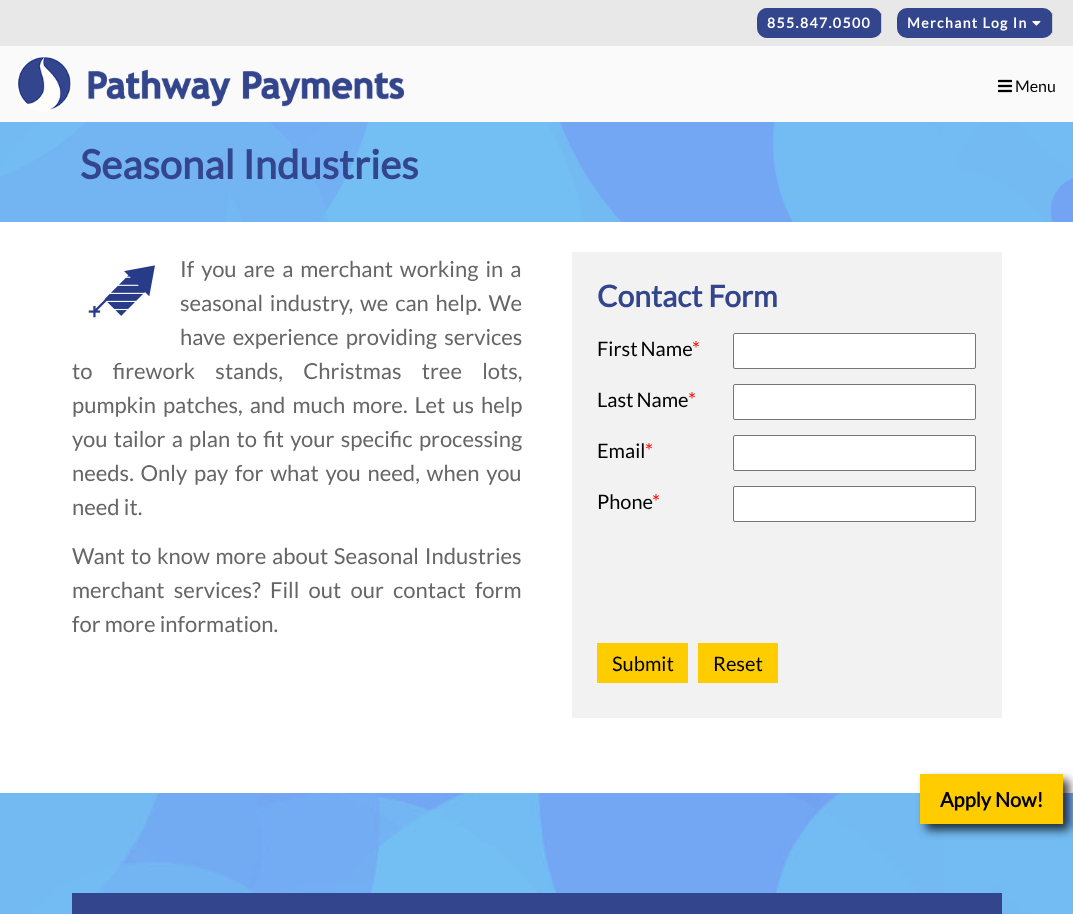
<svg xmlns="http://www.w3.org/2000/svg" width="1073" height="914">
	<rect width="100%" height="100%" fill="#FFFFFF" />
	<rect x="0" y="46" width="1073" height="76" fill="#FAFAFA" />
	<rect x="0" y="0" width="1073" height="46" fill="#E8E8E8" />
	<rect x="757" y="8" width="125" height="30" rx="10" fill="#32458D" />
	<rect x="881" y="13" width="1" height="20" fill="#CCCCCC" />
	<text x="767" y="28" font-family="Lato" font-size="14" font-weight="700" letter-spacing="1.4" fill="#FFFFFF">855.847.0500</text>
	<rect x="897" y="8" width="156" height="30" rx="10" fill="#32458D" />
	<rect x="1052" y="13" width="1" height="20" fill="#CCCCCC" />
	<text x="907" y="28" font-family="Lato" font-size="14" font-weight="700" letter-spacing="1.4" fill="#FFFFFF">Merchant Log In</text>
	<image x="1032" y="21" width="9" height="5" href="assets/img1.png" />
	<image x="16" y="56" width="388" height="56" href="assets/img2.png" />
	<image x="998" y="79" width="14" height="14" href="assets/img3.png" />
	<text x="1015" y="92" font-family="Lato" font-size="16" fill="#000000">Menu</text>
	<image x="0" y="122" width="1073" height="100" href="assets/img4.png" />
	<text x="80" y="179" font-family="Lato" font-size="40" font-weight="700" fill="#32458D">Seasonal Industries</text>
	<image x="88" y="265" width="67" height="53" href="assets/img5.png" />
	<g font-family="Lato" font-size="22" fill="#666666">
		<text x="180" y="277" word-spacing="2.75">If you are a merchant working in a</text>
		<text x="180" y="311" word-spacing="2.5">seasonal industry, we can help. We</text>
		<text x="180" y="345" word-spacing="3">have experience providing services</text>
		<text x="72" y="379" word-spacing="16">to firework stands, Christmas tree lots,</text>
		<text x="72" y="413" word-spacing="2.75">pumpkin patches, and much more. Let us help</text>
		<text x="72" y="447" word-spacing="2">you tailor a plan to fit your specific processing</text>
		<text x="72" y="481" word-spacing="2.5">needs. Only pay for what you need, when you</text>
		<text x="72" y="515">need it.</text>
		<text x="72" y="564" word-spacing="1.5">Want to know more about Seasonal Industries</text>
		<text x="72" y="598" word-spacing="5">merchant services? Fill out our contact form</text>
		<text x="72" y="632">for more information.</text>
	</g>
	<rect x="572" y="252" width="430" height="466" fill="#F2F2F2" />
	<text x="597" y="307" font-family="Lato" font-size="30" font-weight="700" fill="#32458D">Contact Form</text>
	<text x="597" y="356" word-spacing="-1" font-family="Lato" font-size="20" fill="#000000">First Name</text>
	<text x="692" y="356" font-family="Lato" font-size="20" fill="#FF0000">*</text>
	<rect x="733.5" y="333.5" width="242" height="35" rx="1.5" fill="#FFFFFF" stroke="#767676" />
	<text x="597" y="407" word-spacing="-1" font-family="Lato" font-size="20" fill="#000000">Last Name</text>
	<text x="688" y="407" font-family="Lato" font-size="20" fill="#FF0000">*</text>
	<rect x="733.5" y="384.5" width="242" height="35" rx="1.5" fill="#FFFFFF" stroke="#767676" />
	<text x="597" y="458" font-family="Lato" font-size="20" fill="#000000">Email</text>
	<text x="645" y="458" font-family="Lato" font-size="20" fill="#FF0000">*</text>
	<rect x="733.5" y="435.5" width="242" height="35" rx="1.5" fill="#FFFFFF" stroke="#767676" />
	<text x="597" y="509" font-family="Lato" font-size="20" fill="#000000">Phone</text>
	<text x="652" y="509" font-family="Lato" font-size="20" fill="#FF0000">*</text>
	<rect x="733.5" y="486.5" width="242" height="35" rx="1.5" fill="#FFFFFF" stroke="#767676" />
	<rect x="597" y="643" width="91" height="40" fill="#FFCC00" />
	<text x="612" y="671" font-family="Lato" font-size="20" fill="#000000">Submit</text>
	<rect x="698" y="643" width="80" height="40" fill="#FFCC00" />
	<text x="713" y="671" font-family="Lato" font-size="20" fill="#000000">Reset</text>
	<image x="0" y="793" width="1073" height="121" href="assets/img6.png" />
	<rect x="926" y="780" width="143" height="50" fill="#000000" fill-opacity="0.75" filter="blur(5px)" />
	<rect x="920" y="774" width="143" height="50" fill="#FFCC00" />
	<text x="940" y="807" font-family="Lato" font-size="20" font-weight="700" fill="#000000">Apply Now!</text>
	<rect x="72" y="893" width="930" height="21" fill="#32458D" />
</svg>
